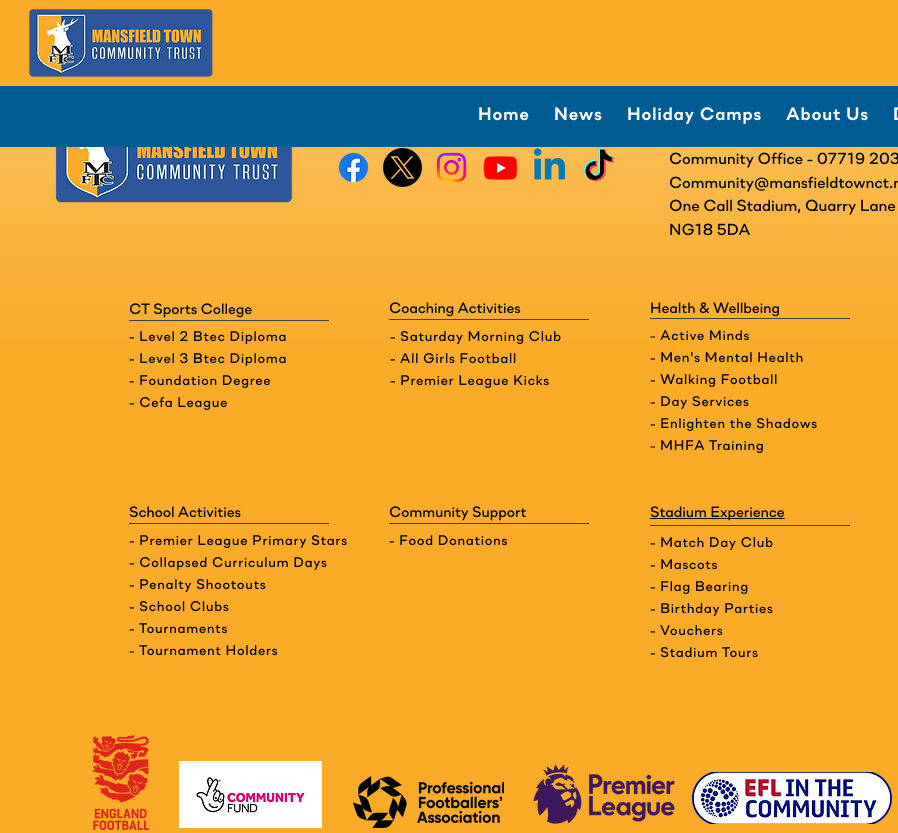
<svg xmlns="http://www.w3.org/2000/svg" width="898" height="833">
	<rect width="100%" height="100%" fill="#FAAC28" />
	<image x="29" y="9" width="184" height="68" href="assets/img1.png" />
	<rect x="0" y="86" width="898" height="61" fill="#005C93" />
	<image x="479" y="107" width="50" height="14" href="assets/img2.png" />
	<image x="555" y="107" width="47" height="14" href="assets/img3.png" />
	<image x="628" y="107" width="133" height="17" href="assets/img4.png" />
	<image x="786" y="107" width="82" height="14" href="assets/img5.png" />
	<image x="894" y="107" width="4" height="13" href="assets/img6.png" />
	<image x="0" y="147" width="898" height="194" href="assets/img7.png" />
	<image x="55" y="147" width="238" height="56" href="assets/img8.png" />
	<image x="338" y="152" width="31" height="31" href="assets/img9.png" />
	<image x="383" y="148" width="39" height="39" href="assets/img10.png" />
	<image x="436" y="152" width="31" height="31" href="assets/img11.png" />
	<image x="483" y="156" width="35" height="24" href="assets/img12.png" />
	<image x="533" y="148" width="33" height="32" href="assets/img13.png" />
	<image x="583" y="148" width="31" height="34" href="assets/img14.png" />
	<image x="670" y="152" width="228" height="16" href="assets/img15.png" />
	<image x="670" y="176" width="228" height="16" href="assets/img16.png" />
	<image x="670" y="199" width="226" height="16" href="assets/img17.png" />
	<image x="670" y="223" width="80" height="13" href="assets/img18.png" />
	<image x="129" y="303" width="123" height="15" href="assets/img19.png" />
	<rect x="129" y="320" width="200" height="1" fill="#424242" />
	<image x="129" y="331" width="157" height="13" href="assets/img20.png" />
	<image x="129" y="353" width="157" height="13" href="assets/img21.png" />
	<image x="129" y="375" width="141" height="13" href="assets/img22.png" />
	<image x="129" y="397" width="98" height="13" href="assets/img23.png" />
	<image x="389" y="302" width="132" height="15" href="assets/img24.png" />
	<rect x="389" y="319" width="200" height="1" fill="#424242" />
	<image x="390" y="331" width="171" height="13" href="assets/img25.png" />
	<image x="390" y="353" width="126" height="11" href="assets/img26.png" />
	<image x="390" y="375" width="159" height="13" href="assets/img27.png" />
	<image x="651" y="302" width="128" height="15" href="assets/img28.png" />
	<rect x="650" y="318" width="200" height="1" fill="#424242" />
	<path d="M650.5 337.5V336.5H655V337.5Z" fill="#000000" />
	<image x="660" y="330" width="89" height="11" href="assets/img29.png" />
	<image x="650" y="352" width="153" height="11" href="assets/img30.png" />
	<image x="650" y="374" width="127" height="13" href="assets/img31.png" />
	<image x="650" y="396" width="99" height="13" href="assets/img32.png" />
	<image x="650" y="418" width="167" height="13" href="assets/img33.png" />
	<path d="M650.5 447.5V446.5H655V447.5Z" fill="#000000" />
	<image x="661" y="440" width="102" height="13" href="assets/img34.png" />
	<image x="129" y="506" width="112" height="12" href="assets/img35.png" />
	<rect x="129" y="523" width="200" height="1" fill="#424242" />
	<image x="129" y="535" width="218" height="13" href="assets/img36.png" />
	<image x="129" y="557" width="198" height="13" href="assets/img37.png" />
	<image x="129" y="579" width="137" height="13" href="assets/img38.png" />
	<image x="129" y="601" width="100" height="11" href="assets/img39.png" />
	<image x="129" y="623" width="98" height="11" href="assets/img40.png" />
	<path d="M129.5 652.5V651.5H134V652.5Z" fill="#000000" />
	<image x="139" y="645" width="139" height="11" href="assets/img41.png" />
	<image x="389" y="506" width="137" height="15" href="assets/img42.png" />
	<rect x="389" y="523" width="200" height="1" fill="#424242" />
	<image x="389" y="535" width="118" height="11" href="assets/img43.png" />
	<rect x="650" y="518" width="135" height="1" fill="#000000" />
	<image x="650" y="506" width="134" height="15" href="assets/img44.png" />
	<rect x="650" y="525" width="200" height="1" fill="#424242" />
	<image x="650" y="537" width="123" height="13" href="assets/img45.png" />
	<image x="650" y="559" width="67" height="11" href="assets/img46.png" />
	<image x="650" y="581" width="98" height="13" href="assets/img47.png" />
	<image x="650" y="603" width="123" height="13" href="assets/img48.png" />
	<image x="650" y="625" width="73" height="11" href="assets/img49.png" />
	<image x="650" y="647" width="108" height="11" href="assets/img50.png" />
	<image x="93" y="735" width="56" height="95" href="assets/img51.png" />
	<image x="179" y="761" width="143" height="67" href="assets/img52.png" />
	<image x="353" y="776" width="151" height="52" href="assets/img53.png" />
	<image x="533" y="764" width="142" height="60" href="assets/img54.png" />
	<image x="692" y="772" width="200" height="52" href="assets/img55.png" />
</svg>
